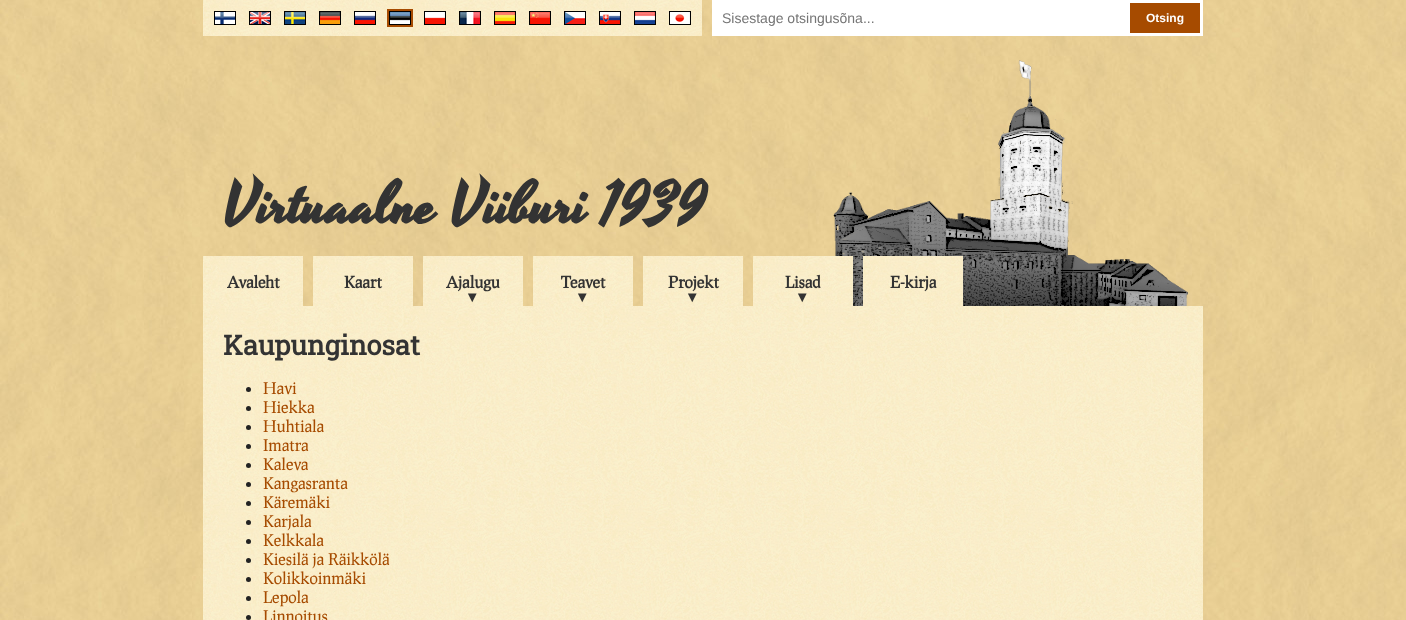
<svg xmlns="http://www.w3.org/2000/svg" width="1406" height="620">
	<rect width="100%" height="100%" fill="#FFFFFF" />
	<image x="0" y="0" width="1406" height="620" href="assets/img1.png" />
	<image x="203" y="0" width="499" height="36" href="assets/img2.png" />
	<rect x="214" y="11" width="22" height="14" fill="#000000" />
	<image x="215" y="12" width="20" height="12" href="assets/img3.png" />
	<rect x="249" y="11" width="22" height="14" fill="#000000" />
	<image x="250" y="12" width="20" height="12" href="assets/img4.png" />
	<rect x="284" y="11" width="22" height="14" fill="#000000" />
	<image x="285" y="12" width="20" height="12" href="assets/img5.png" />
	<rect x="319" y="11" width="22" height="14" fill="#000000" />
	<image x="320" y="12" width="20" height="12" href="assets/img6.png" />
	<rect x="354" y="11" width="22" height="14" fill="#000000" />
	<image x="355" y="12" width="20" height="12" href="assets/img7.png" />
	<rect x="388" y="10" width="24" height="16" fill="#000000" stroke="#A64B00" stroke-width="2" />
	<image x="390" y="12" width="20" height="12" href="assets/img8.png" />
	<rect x="424" y="11" width="22" height="14" fill="#000000" />
	<image x="425" y="12" width="20" height="12" href="assets/img9.png" />
	<rect x="459" y="11" width="22" height="14" fill="#000000" />
	<image x="460" y="12" width="20" height="12" href="assets/img10.png" />
	<rect x="494" y="11" width="22" height="14" fill="#000000" />
	<image x="495" y="12" width="20" height="12" href="assets/img11.png" />
	<rect x="529" y="11" width="22" height="14" fill="#000000" />
	<image x="530" y="12" width="20" height="12" href="assets/img12.png" />
	<rect x="564" y="11" width="22" height="14" fill="#000000" />
	<image x="565" y="12" width="20" height="12" href="assets/img13.png" />
	<rect x="599" y="11" width="22" height="14" fill="#000000" />
	<image x="600" y="12" width="20" height="12" href="assets/img14.png" />
	<rect x="634" y="11" width="22" height="14" fill="#000000" />
	<image x="635" y="12" width="20" height="12" href="assets/img15.png" />
	<rect x="669" y="11" width="22" height="14" fill="#000000" />
	<image x="670" y="12" width="20" height="12" href="assets/img16.png" />
	<rect x="712" y="0" width="491" height="36" fill="#FFFFFF" />
	<text x="722" y="23" font-family="Liberation Sans" font-size="14" fill="#757575">Sisestage otsingusõna...</text>
	<rect x="1130" y="3" width="70" height="30" fill="#A64B00" />
	<text x="1146" y="22" font-family="Liberation Sans" font-size="12" font-weight="700" fill="#FFFFFF">Otsing</text>
	<image x="833" y="60" width="355" height="246" href="assets/img17.png" />
	<text x="223" y="222" font-family="Yesteryear" font-size="60" font-weight="700" fill="#333333">Virtuaalne Viiburi 1939</text>
	<image x="203" y="256" width="100" height="50" href="assets/img18.png" />
	<text x="227" y="288" font-family="Prociono" font-size="16" font-weight="700" fill="#333333">Avaleht</text>
	<image x="313" y="256" width="100" height="50" href="assets/img18.png" />
	<text x="344" y="288" font-family="Prociono" font-size="16" font-weight="700" fill="#333333">Kaart</text>
	<image x="423" y="256" width="100" height="50" href="assets/img18.png" />
	<text x="446" y="288" font-family="Prociono" font-size="16" font-weight="700" fill="#333333">Ajalugu</text>
	<text x="468" y="302" font-family="DejaVu Sans" font-size="16" font-weight="700" fill="#333333">▾</text>
	<image x="533" y="256" width="100" height="50" href="assets/img18.png" />
	<text x="561" y="288" font-family="Prociono" font-size="16" font-weight="700" fill="#333333">Teavet</text>
	<text x="578" y="302" font-family="DejaVu Sans" font-size="16" font-weight="700" fill="#333333">▾</text>
	<image x="643" y="256" width="100" height="50" href="assets/img18.png" />
	<text x="668" y="288" font-family="Prociono" font-size="16" font-weight="700" fill="#333333">Projekt</text>
	<text x="688" y="302" font-family="DejaVu Sans" font-size="16" font-weight="700" fill="#333333">▾</text>
	<image x="753" y="256" width="100" height="50" href="assets/img18.png" />
	<text x="785" y="288" font-family="Prociono" font-size="16" font-weight="700" fill="#333333">Lisad</text>
	<text x="798" y="302" font-family="DejaVu Sans" font-size="16" font-weight="700" fill="#333333">▾</text>
	<image x="863" y="256" width="100" height="50" href="assets/img18.png" />
	<text x="890" y="288" font-family="Prociono" font-size="16" font-weight="700" fill="#333333">E-kirja</text>
	<image x="203" y="306" width="1000" height="314" href="assets/img19.png" />
	<text x="223" y="355" font-family="Roboto Slab" font-size="27.25" font-weight="700" fill="#333333">Kaupunginosat</text>
	<circle cx="248.5" cy="389.5" r="2.5" fill="#222222" />
	<text x="263" y="394" font-family="Prociono" font-size="16" fill="#A64B00">Havi</text>
	<circle cx="248.5" cy="408.5" r="2.5" fill="#222222" />
	<text x="263" y="413" font-family="Prociono" font-size="16" fill="#A64B00">Hiekka</text>
	<circle cx="248.5" cy="427.5" r="2.5" fill="#222222" />
	<text x="263" y="432" font-family="Prociono" font-size="16" fill="#A64B00">Huhtiala</text>
	<circle cx="248.5" cy="446.5" r="2.5" fill="#222222" />
	<text x="263" y="451" font-family="Prociono" font-size="16" fill="#A64B00">Imatra</text>
	<circle cx="248.5" cy="465.5" r="2.5" fill="#222222" />
	<text x="263" y="470" font-family="Prociono" font-size="16" fill="#A64B00">Kaleva</text>
	<circle cx="248.5" cy="484.5" r="2.5" fill="#222222" />
	<text x="263" y="489" font-family="Prociono" font-size="16" fill="#A64B00">Kangasranta</text>
	<circle cx="248.5" cy="503.5" r="2.5" fill="#222222" />
	<text x="263" y="508" font-family="Prociono" font-size="16" fill="#A64B00">Käremäki</text>
	<circle cx="248.5" cy="522.5" r="2.5" fill="#222222" />
	<text x="263" y="527" font-family="Prociono" font-size="16" fill="#A64B00">Karjala</text>
	<circle cx="248.5" cy="541.5" r="2.5" fill="#222222" />
	<text x="263" y="546" font-family="Prociono" font-size="16" fill="#A64B00">Kelkkala</text>
	<circle cx="248.5" cy="560.5" r="2.5" fill="#222222" />
	<text x="263" y="565" font-family="Prociono" font-size="16" fill="#A64B00">Kiesilä ja Räikkölä</text>
	<circle cx="248.5" cy="579.5" r="2.5" fill="#222222" />
	<text x="263" y="584" font-family="Prociono" font-size="16" fill="#A64B00">Kolikkoinmäki</text>
	<circle cx="248.5" cy="598.5" r="2.5" fill="#222222" />
	<text x="263" y="603" font-family="Prociono" font-size="16" fill="#A64B00">Lepola</text>
	<circle cx="248.5" cy="617.5" r="2.5" fill="#222222" />
	<text x="263" y="622" font-family="Prociono" font-size="16" fill="#A64B00">Linnoitus</text>
</svg>
